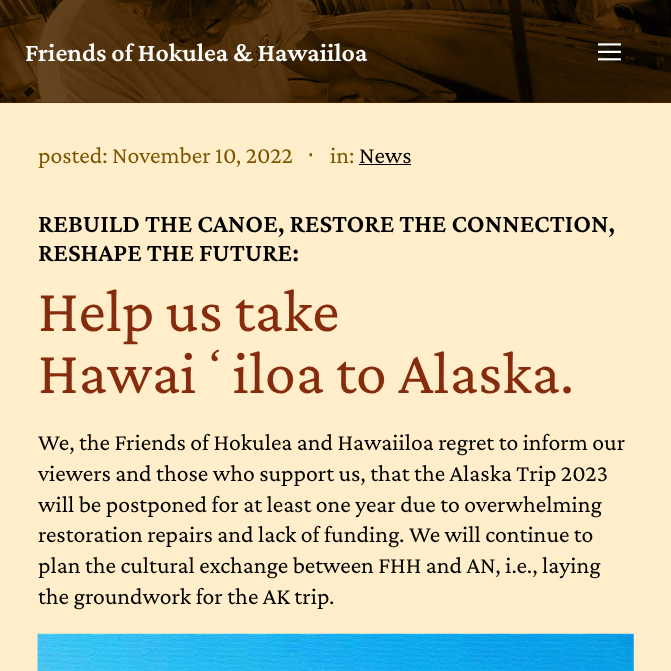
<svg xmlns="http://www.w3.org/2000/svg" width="671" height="671">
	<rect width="100%" height="100%" fill="#FFEEC9" />
	<rect x="0" y="102" width="671" height="1" fill="#6A2601" />
	<image x="0" y="0" width="671" height="103" href="assets/img1.png" />
	<text x="25" y="61" font-family="Crimson Pro" font-size="26.1" font-weight="600" fill="#FFFFFF">Friends of Hokulea &amp; Hawaiiloa</text>
	<image x="598" y="43" width="23" height="18" href="assets/img2.png" />
	<text x="38" y="163" font-family="Crimson Pro" font-size="23.75" fill="#7B5501">posted: November 10, 2022</text>
	<text x="307" y="163" font-family="DejaVu Sans" font-size="23.75" fill="#7B5501">⋅</text>
	<text x="330" y="163" font-family="Crimson Pro" font-size="23.75" fill="#7B5501">in:</text>
	<text x="359" y="163" font-family="Crimson Pro" font-size="23.75" fill="#000000">News</text>
	<rect x="359" y="164" width="52" height="1" fill="#000000" />
	<g font-family="Crimson Pro" font-size="26.1" font-weight="600" fill="#000000">
		<text x="38" y="232">REBUILD THE CANOE, RESTORE THE CONNECTION,</text>
		<text x="38" y="261">RESHAPE THE FUTURE:</text>
	</g>
	<g font-family="Crimson Pro" font-size="61.75" fill="#862B0C">
		<text x="38" y="331">Help us take</text>
		<text x="38" y="393">Hawaiʻiloa to Alaska.</text>
	</g>
	<g font-family="Crimson Pro" font-size="23.75" fill="#000000">
		<text x="38" y="450">We, the Friends of Hokulea and Hawaiiloa regret to inform our</text>
		<text x="38" y="481">viewers and those who support us, that the Alaska Trip 2023</text>
		<text x="38" y="512">will be postponed for at least one year due to overwhelming</text>
		<text x="38" y="542">restoration repairs and lack of funding. We will continue to</text>
		<text x="38" y="573">plan the cultural exchange between FHH and AN, i.e., laying</text>
		<text x="38" y="604">the groundwork for the AK trip.</text>
	</g>
	<image x="37" y="633" width="597" height="38" href="assets/img3.png" />
</svg>
